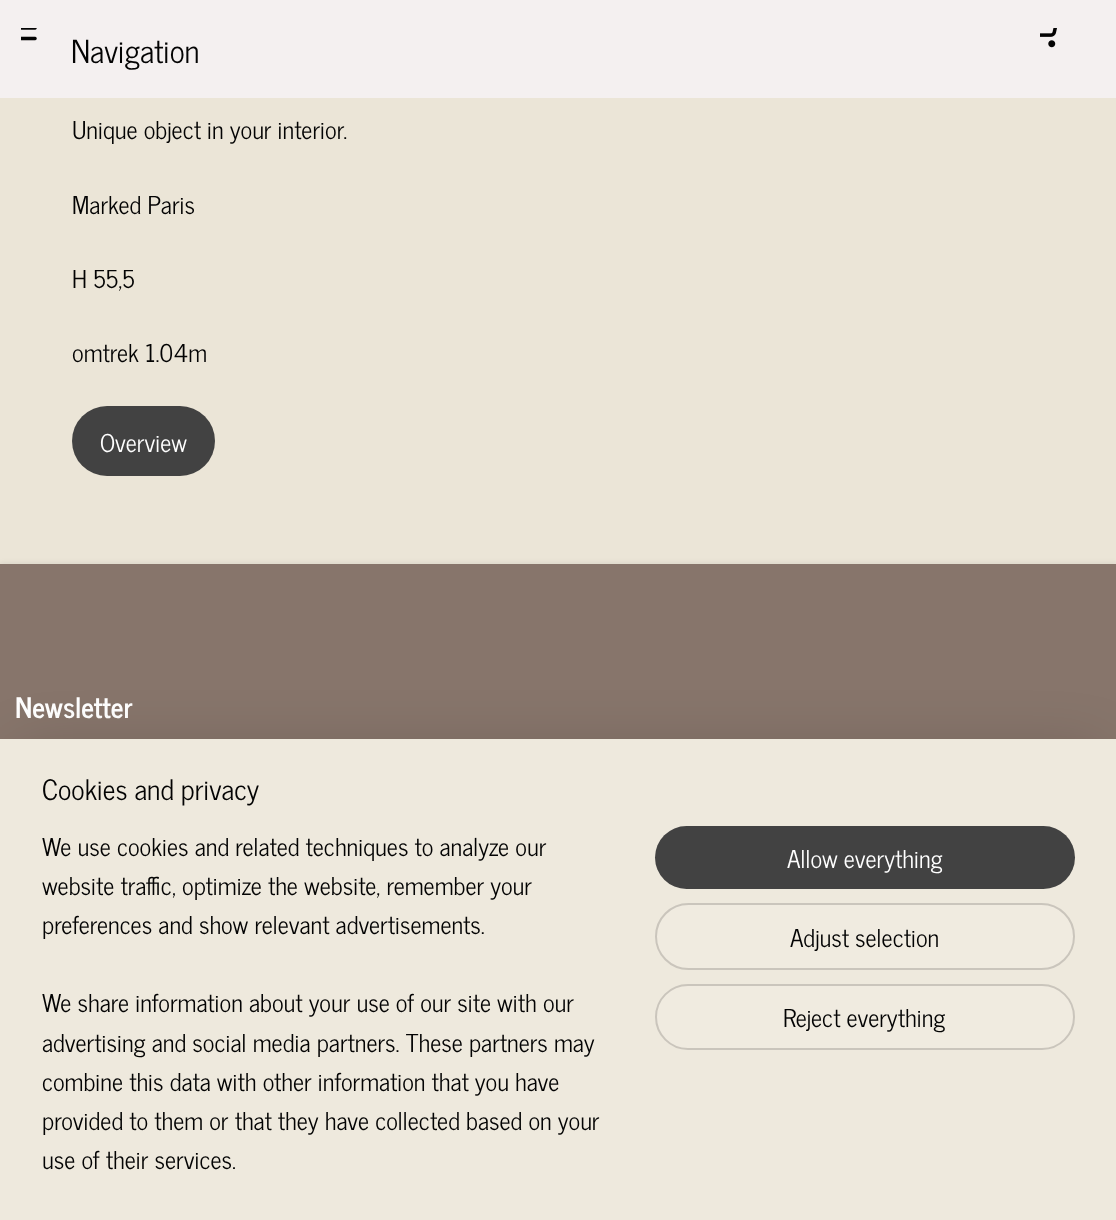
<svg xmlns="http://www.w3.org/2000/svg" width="1116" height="1220">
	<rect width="100%" height="100%" fill="#EBE5D7" />
	<rect x="0" y="0" width="1116" height="98" fill="#F4F0F0" />
	<image x="21" y="28" width="16" height="13" href="assets/img1.png" />
	<text x="71" y="63" font-family="News Cycle" font-size="31.5" fill="#030303">Navigation</text>
	<image x="1040" y="28" width="17" height="20" href="assets/img2.png" />
	<g font-family="News Cycle" font-size="24.5" fill="#030303">
		<text x="72" y="139">Unique object in your interior.</text>
		<text x="72" y="214">Marked Paris</text>
		<text x="72" y="288">H 55,5</text>
		<text x="72" y="362">omtrek 1.04m</text>
	</g>
	<rect x="72" y="406" width="143" height="70" rx="35" fill="#424242" />
	<text x="100" y="452" font-family="News Cycle" font-size="24.5" fill="#FFFFFF">Overview</text>
	<rect x="0" y="562" width="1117" height="563" fill="#000000" fill-opacity="0.05" filter="blur(2px)" />
	<rect x="0" y="564" width="1116" height="175" fill="#87756B" />
	<text x="15" y="718" font-family="News Cycle" font-size="28" font-weight="700" fill="#FFFFFF">Newsletter</text>
	<rect x="18" y="756" width="1081" height="448" fill="#000000" fill-opacity="0.2" filter="blur(31.5px)" />
	<rect x="0" y="739" width="1116" height="481" fill="#EEE9DD" />
	<text x="42" y="800" font-family="News Cycle" font-size="28" fill="#030303">Cookies and privacy</text>
	<g font-family="News Cycle" font-size="24.5" fill="#030303">
		<text x="42" y="856">We use cookies and related techniques to analyze our</text>
		<text x="42" y="895">website traffic, optimize the website, remember your</text>
		<text x="42" y="934">preferences and show relevant advertisements.</text>
		<text x="42" y="1012">We share information about your use of our site with our</text>
		<text x="42" y="1052">advertising and social media partners. These partners may</text>
		<text x="42" y="1091">combine this data with other information that you have</text>
		<text x="42" y="1130">provided to them or that they have collected based on your</text>
		<text x="42" y="1169">use of their services.</text>
	</g>
	<rect x="655" y="826" width="420" height="63" rx="31.5" fill="#424242" />
	<text x="787" y="868" font-family="News Cycle" font-size="24.5" fill="#FFFFFF">Allow everything</text>
	<rect x="656" y="904" width="418" height="65" rx="32.5" fill="#F0EBE0" stroke="#CAC5BC" stroke-width="2" />
	<text x="790" y="947" font-family="News Cycle" font-size="24.5" fill="#030303">Adjust selection</text>
	<rect x="656" y="985" width="418" height="64" rx="32" fill="#F0EBE0" stroke="#CAC5BC" stroke-width="2" />
	<text x="783" y="1027" font-family="News Cycle" font-size="24.5" fill="#030303">Reject everything</text>
</svg>
